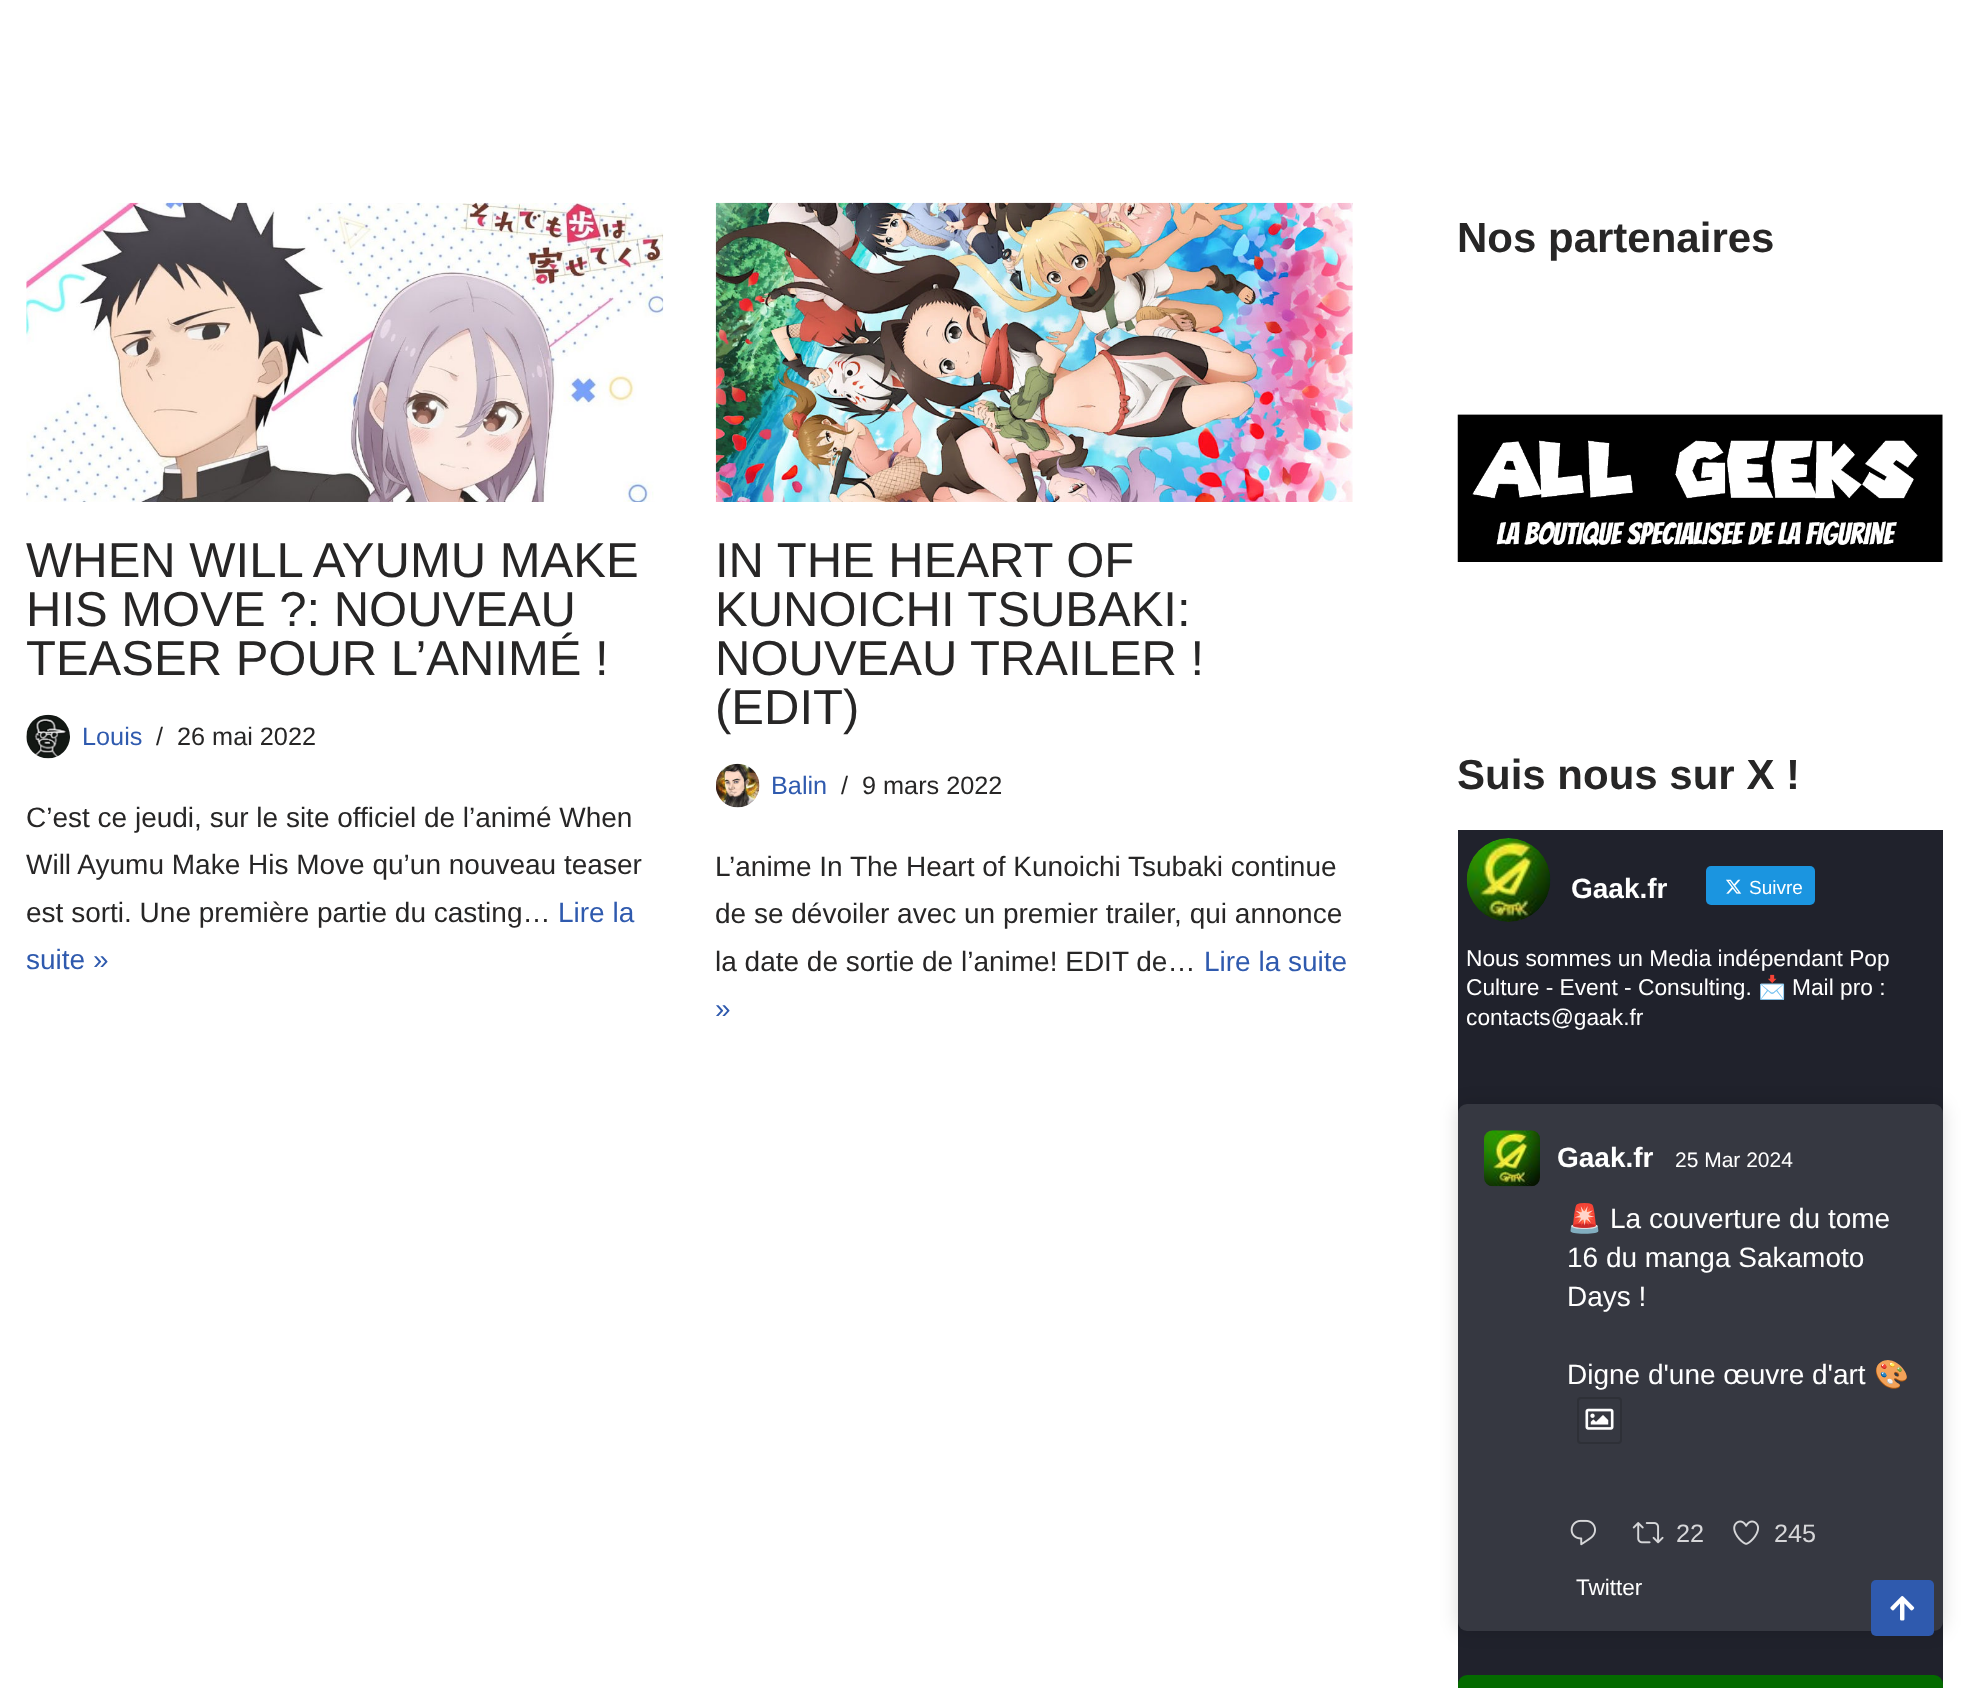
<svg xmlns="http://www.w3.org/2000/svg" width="1968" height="1688">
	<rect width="100%" height="100%" fill="#FFFFFF" />
	<image x="26" y="202" width="638" height="300" href="assets/img1.png" />
	<g font-family="Liberation Sans" font-size="49" fill="#272626">
		<text x="26" y="577">WHEN WILL AYUMU MAKE</text>
		<text x="26" y="626">HIS MOVE ?: NOUVEAU</text>
		<text x="26" y="675">TEASER POUR L’ANIMÉ !</text>
	</g>
	<image x="26" y="714" width="44" height="45" href="assets/img2.png" />
	<text x="82" y="745" font-family="Liberation Sans" font-size="25.25" fill="#2F5AAE">Louis</text>
	<g font-family="Liberation Sans" font-size="25.25" fill="#272626">
		<text x="156" y="745">/</text>
		<text x="177" y="745">26 mai 2022</text>
	</g>
	<g font-family="Liberation Sans" font-size="28" fill="#272626">
		<text x="26" y="827">C’est ce jeudi, sur le site officiel de l’animé When</text>
		<text x="26" y="874">Will Ayumu Make His Move qu’un nouveau teaser</text>
		<text x="26" y="922">est sorti. Une première partie du casting…</text>
	</g>
	<g font-family="Liberation Sans" font-size="28" fill="#2F5AAE">
		<text x="558" y="922">Lire la</text>
		<text x="26" y="969">suite »</text>
	</g>
	<image x="715" y="202" width="638" height="300" href="assets/img3.png" />
	<g font-family="Liberation Sans" font-size="49" fill="#272626">
		<text x="715" y="577">IN THE HEART OF</text>
		<text x="715" y="626">KUNOICHI TSUBAKI:</text>
		<text x="715" y="675">NOUVEAU TRAILER !</text>
		<text x="715" y="724">(EDIT)</text>
	</g>
	<image x="716" y="763" width="44" height="45" href="assets/img4.png" />
	<text x="771" y="794" font-family="Liberation Sans" font-size="25.25" fill="#2F5AAE">Balin</text>
	<g font-family="Liberation Sans" font-size="25.25" fill="#272626">
		<text x="841" y="794">/</text>
		<text x="862" y="794">9 mars 2022</text>
	</g>
	<g font-family="Liberation Sans" font-size="28" fill="#272626">
		<text x="715" y="876">L’anime In The Heart of Kunoichi Tsubaki continue</text>
		<text x="715" y="923">de se dévoiler avec un premier trailer, qui annonce</text>
		<text x="715" y="971">la date de sortie de l’anime! EDIT de…</text>
	</g>
	<g font-family="Liberation Sans" font-size="28" fill="#2F5AAE">
		<text x="1204" y="971">Lire la suite</text>
		<text x="715" y="1018">»</text>
	</g>
	<text x="1457" y="252" font-family="Liberation Sans" font-size="42" font-weight="700" fill="#272626">Nos partenaires</text>
	<image x="1457" y="414" width="486" height="148" href="assets/img5.png" />
	<text x="1457" y="789" font-family="Liberation Sans" font-size="42" font-weight="700" fill="#272626">Suis nous sur X !</text>
	<rect x="1458" y="830" width="485" height="854" fill="#20222C" />
	<image x="1466" y="838" width="85" height="84" href="assets/img6.png" />
	<text x="1571" y="898" font-family="Liberation Sans" font-size="28" font-weight="700" fill="#FFFFFF">Gaak.fr</text>
	<rect x="1706" y="866" width="109" height="39" rx="5" fill="#1B95E0" />
	<image x="1726" y="879" width="16" height="15" href="assets/img7.png" />
	<text x="1749" y="894" font-family="Liberation Sans" font-size="19" fill="#FFFFFF">Suivre</text>
	<g font-family="Liberation Sans" font-size="22.75" fill="#FFFFFF">
		<text x="1466" y="966">Nous sommes un Media indépendant Pop</text>
		<text x="1466" y="995">Culture - Event - Consulting.</text>
	</g>
	<text x="1758" y="995" font-family="Noto Color Emoji" font-size="22.75" fill="#FFFFFF">📩</text>
	<g font-family="Liberation Sans" font-size="22.75" fill="#FFFFFF">
		<text x="1792" y="995">Mail pro :</text>
		<text x="1466" y="1025">contacts@gaak.fr</text>
	</g>
	<rect x="1458" y="1104" width="485" height="527" rx="9" fill="#000000" fill-opacity="0.15" filter="blur(9px)" />
	<rect x="1458" y="1104" width="485" height="527" rx="9" fill="#363841" />
	<image x="1484" y="1130" width="56" height="57" href="assets/img8.png" />
	<text x="1557" y="1167" font-family="Liberation Sans" font-size="28" font-weight="700" fill="#FFFFFF">Gaak.fr</text>
	<text x="1675" y="1167" font-family="Liberation Sans" font-size="21" fill="#FFFFFF">25 Mar 2024</text>
	<text x="1567" y="1228" font-family="Noto Color Emoji" font-size="28" fill="#FFFFFF">🚨</text>
	<g font-family="Liberation Sans" font-size="28" fill="#FFFFFF">
		<text x="1610" y="1228">La couverture du tome</text>
		<text x="1567" y="1267">16 du manga Sakamoto</text>
		<text x="1567" y="1306">Days !</text>
		<text x="1567" y="1384">Digne d'une œuvre d'art</text>
	</g>
	<text x="1874" y="1384" font-family="Noto Color Emoji" font-size="28" fill="#FFFFFF">🎨</text>
	<rect x="1578" y="1398" width="43" height="45" rx="3" fill="none" stroke="#2E3037" stroke-width="2" />
	<image x="1585" y="1408" width="29" height="22" href="assets/img9.png" />
	<image x="1570" y="1519" width="26" height="27" href="assets/img10.png" />
	<image x="1632" y="1522" width="32" height="22" href="assets/img11.png" />
	<text x="1676" y="1542" font-family="Liberation Sans" font-size="25.25" fill="#D7D7D9">22</text>
	<image x="1733" y="1520" width="26" height="25" href="assets/img12.png" />
	<text x="1774" y="1542" font-family="Liberation Sans" font-size="25.25" fill="#D7D7D9">245</text>
	<text x="1576" y="1595" font-family="Liberation Sans" font-size="22.5" fill="#FFFFFF">Twitter</text>
	<rect x="1458" y="1675" width="485" height="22" rx="9" fill="#046B00" />
	<rect x="1871" y="1580" width="63" height="56" rx="5" fill="#2F5AAE" />
	<image x="1890" y="1596" width="25" height="25" href="assets/img13.png" />
</svg>
